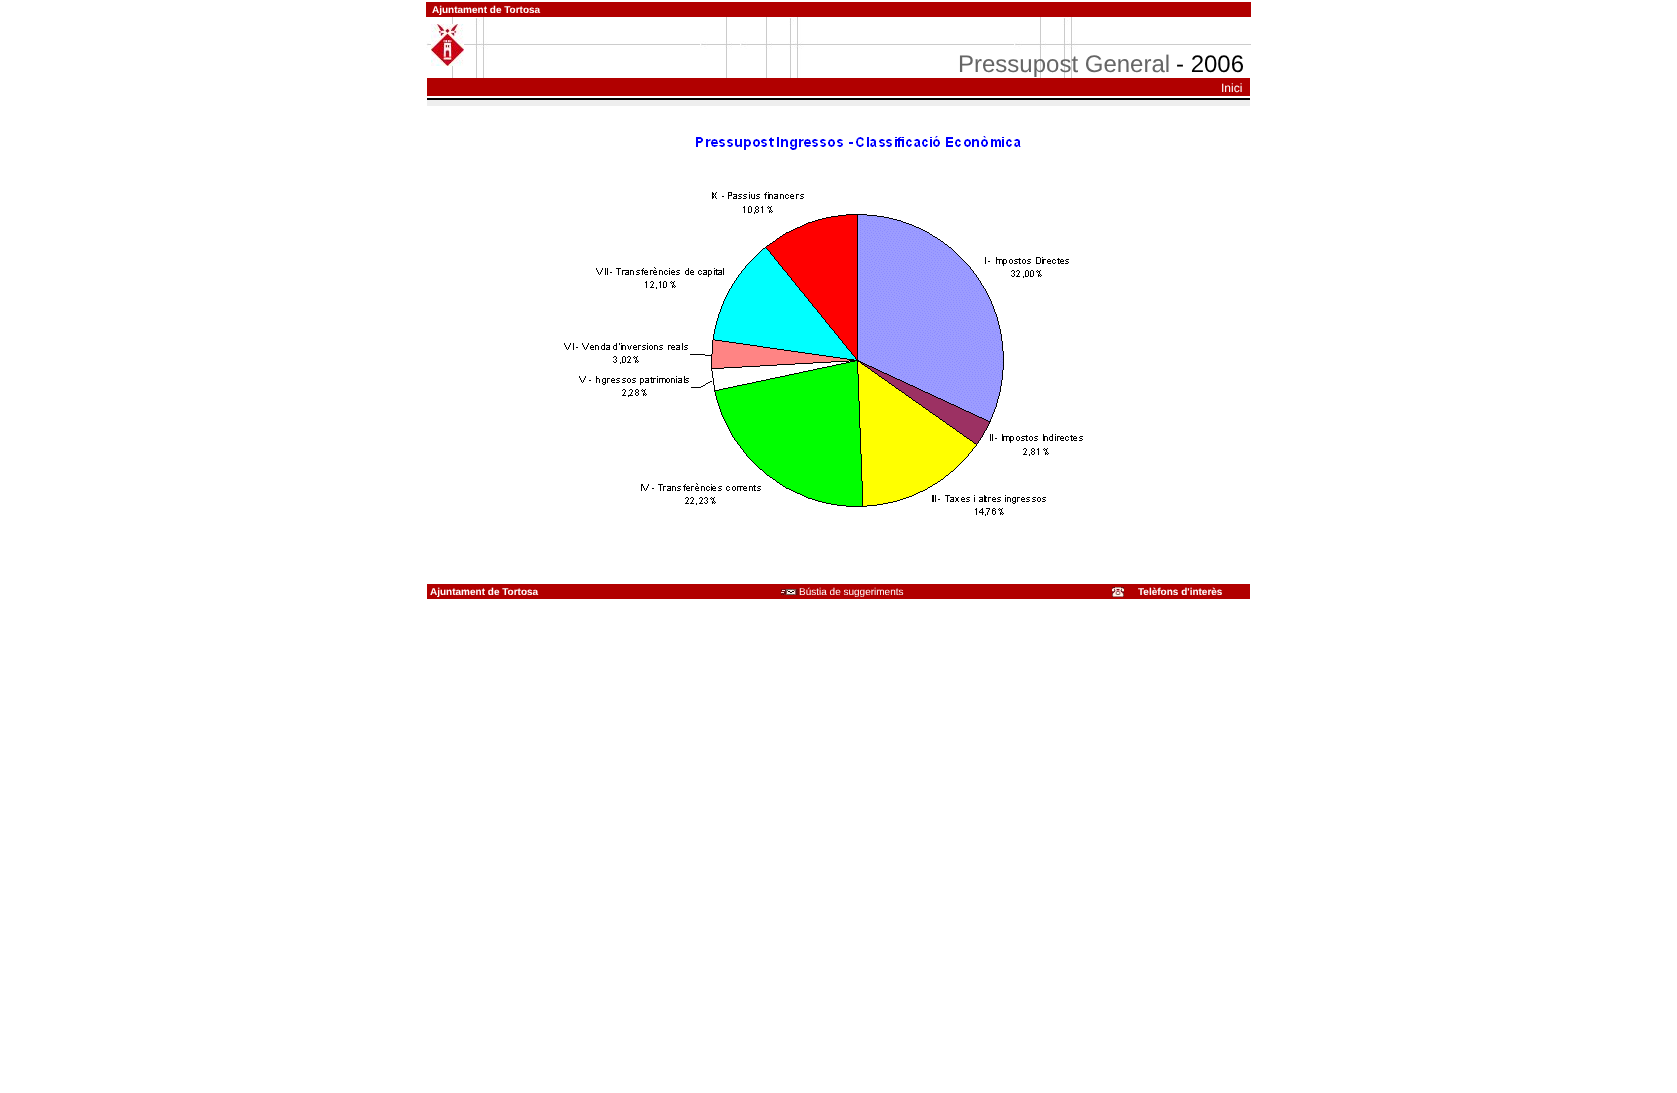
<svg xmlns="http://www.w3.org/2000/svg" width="1677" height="1093">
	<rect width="100%" height="100%" fill="#FFFFFF" />
	<rect x="426" y="2" width="825" height="15" fill="#B10000" />
	<text x="432" y="13" font-family="Liberation Sans" font-size="10" font-weight="700" fill="#FFFFFF">Ajuntament de Tortosa</text>
	<image x="426" y="17" width="314" height="61" href="assets/img1.png" />
	<image x="431" y="24" width="33" height="42" href="assets/img2.png" />
	<image x="740" y="17" width="511" height="61" href="assets/img3.png" />
	<text x="958" y="72" font-family="Liberation Sans" font-size="24" fill="#666666">Pressupost General</text>
	<text x="1176" y="72" font-family="Liberation Sans" font-size="24" fill="#000000">- 2006</text>
	<rect x="427" y="78" width="823" height="18" fill="#B10000" />
	<text x="1221" y="92" font-family="Liberation Sans" font-size="12" fill="#FFFFFF">Inici</text>
	<rect x="427" y="98" width="823" height="2" fill="#000000" />
	<rect x="427" y="100" width="823" height="6" fill="#EEEEEE" />
	<image x="564" y="136" width="519" height="380" href="assets/img4.png" />
	<rect x="427" y="584" width="823" height="15" fill="#B10000" />
	<text x="430" y="595" font-family="Liberation Sans" font-size="10" font-weight="700" fill="#FFFFFF">Ajuntament de Tortosa</text>
	<image x="781" y="589" width="18" height="6" href="assets/img5.png" />
	<text x="799" y="595" font-family="Liberation Sans" font-size="10" fill="#FFFFFF">Bústia de suggeriments</text>
	<image x="1112" y="587" width="12" height="10" href="assets/img6.png" />
	<text x="1138" y="595" font-family="Liberation Sans" font-size="10" font-weight="700" fill="#FFFFFF">Telèfons d'interès</text>
</svg>
